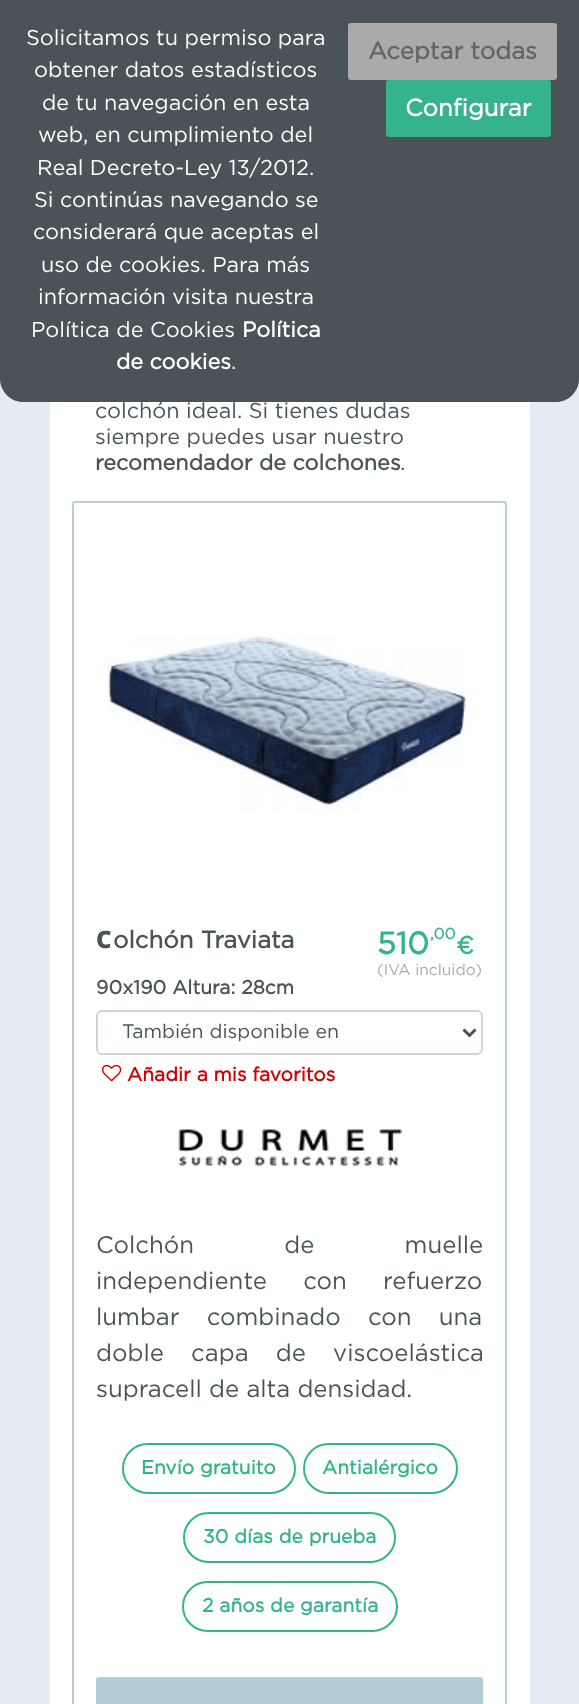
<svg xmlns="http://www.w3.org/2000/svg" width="579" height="1704">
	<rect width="100%" height="100%" fill="#E3EDF1" />
	<path d="M0 0H579V379C579 391.5 568.5 402 556 402H23C10.5 402 0 391.5 0 379Z" fill="#495358" />
	<g font-family="Gotham" font-size="21.6" fill="#FFFFFF">
		<text x="26" y="45">Solicitamos tu permiso para</text>
		<text x="34" y="77">obtener datos estadísticos</text>
		<text x="42" y="110">de tu navegación en esta</text>
		<text x="38" y="142">web, en cumplimiento del</text>
		<text x="37" y="175">Real Decreto-Ley 13/2012.</text>
		<text x="34" y="207">Si continúas navegando se</text>
		<text x="33" y="239">considerará que aceptas el</text>
		<text x="41" y="272">uso de cookies. Para más</text>
		<text x="38" y="304">información visita nuestra</text>
		<text x="31" y="337">Política de Cookies</text>
	</g>
	<g font-family="Gotham" font-size="21.6" font-weight="700" fill="#FFFFFF">
		<text x="242" y="337">Política</text>
		<text x="116" y="369">de cookies</text>
	</g>
	<text x="231" y="369" font-family="Gotham" font-size="21.6" fill="#FFFFFF">.</text>
	<rect x="348" y="23" width="209" height="57" rx="3" fill="#AAAAAA" />
	<text x="368" y="59" font-family="Gotham" font-size="24" font-weight="700" fill="#666666">Aceptar todas</text>
	<rect x="386" y="80" width="165" height="57" rx="3" fill="#35B38C" />
	<text x="405" y="116" font-family="Gotham" font-size="24" font-weight="700" fill="#FFFFFF">Configurar</text>
	<rect x="50" y="402" width="480" height="1302" fill="#FFFFFF" />
	<g font-family="Gotham" font-size="21.6" fill="#495358">
		<text x="95" y="418">colchón ideal. Si tienes dudas</text>
		<text x="95" y="444">siempre puedes usar nuestro</text>
	</g>
	<text x="95" y="470" font-family="Gotham" font-size="21.6" font-weight="700" fill="#495358">recomendador de colchones</text>
	<text x="400" y="470" font-family="Gotham" font-size="21.6" fill="#495358">.</text>
	<rect x="73" y="502" width="433" height="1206" rx="2" fill="none" stroke="#BCCED8" stroke-width="2" />
	<image x="96" y="635" width="376" height="178" href="assets/img1.png" />
	<text x="96" y="948" font-family="Noto Sans" font-size="24" font-weight="900" fill="#495358">C</text>
	<text x="113" y="948" font-family="Gotham" font-size="24" font-weight="700" fill="#495358">olchón Traviata</text>
	<text x="377" y="954" font-family="Gotham" font-size="31" font-weight="700" fill="#35B38C">510</text>
	<text x="430" y="939" font-family="Gotham" font-size="15.5" font-weight="700" fill="#35B38C">,00</text>
	<text x="456" y="954" font-family="Gotham" font-size="25" font-weight="700" fill="#35B38C">€</text>
	<text x="377" y="975" font-family="Gotham" font-size="15.5" fill="#AAAAAA">(IVA incluido)</text>
	<text x="96" y="994" font-family="Gotham" font-size="19.25" font-weight="700" fill="#495358">90x190 Altura: 28cm</text>
	<rect x="97" y="1011" width="385" height="43" rx="5" fill="none" stroke="#CED4DA" stroke-width="2" />
	<path d="M463.5 1029.5L469.5 1035.5L475.5 1029.5" fill="none" stroke="#495057" stroke-width="3" />
	<text x="122" y="1038" font-family="Gotham" font-size="19.5" fill="#495358">También disponible en</text>
	<image x="102" y="1064" width="20" height="18" href="assets/img2.png" />
	<text x="127" y="1081" font-family="Gotham" font-size="19.25" font-weight="700" fill="#CC0000">Añadir a mis favoritos</text>
	<image x="178" y="1129" width="225" height="37" href="assets/img3.png" />
	<g font-family="Gotham" font-size="24" fill="#495358">
		<text x="96" y="1253" word-spacing="83">Colchón de muelle</text>
		<text x="96" y="1289" word-spacing="29">independiente con refuerzo</text>
		<text x="96" y="1325" word-spacing="20">lumbar combinado con una</text>
		<text x="96" y="1361" word-spacing="20">doble capa de viscoelástica</text>
		<text x="96" y="1397">supracell de alta densidad.</text>
	</g>
	<rect x="123" y="1444" width="172" height="49" rx="24.5" fill="none" stroke="#35B38C" stroke-width="2" />
	<text x="141" y="1474" font-family="Gotham" font-size="19.25" font-weight="700" fill="#35B38C">Envío gratuito</text>
	<rect x="304" y="1444" width="153" height="49" rx="24.5" fill="none" stroke="#35B38C" stroke-width="2" />
	<text x="322" y="1474" font-family="Gotham" font-size="19.25" font-weight="700" fill="#35B38C">Antialérgico</text>
	<rect x="184" y="1513" width="211" height="49" rx="24.5" fill="none" stroke="#35B38C" stroke-width="2" />
	<text x="203" y="1543" font-family="Gotham" font-size="19.25" font-weight="700" fill="#35B38C">30 días de prueba</text>
	<rect x="183" y="1582" width="214" height="49" rx="24.5" fill="none" stroke="#35B38C" stroke-width="2" />
	<text x="202" y="1612" font-family="Gotham" font-size="19.25" font-weight="700" fill="#35B38C">2 años de garantía</text>
	<rect x="96" y="1677" width="387" height="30" rx="3" fill="#B3CED7" />
</svg>
